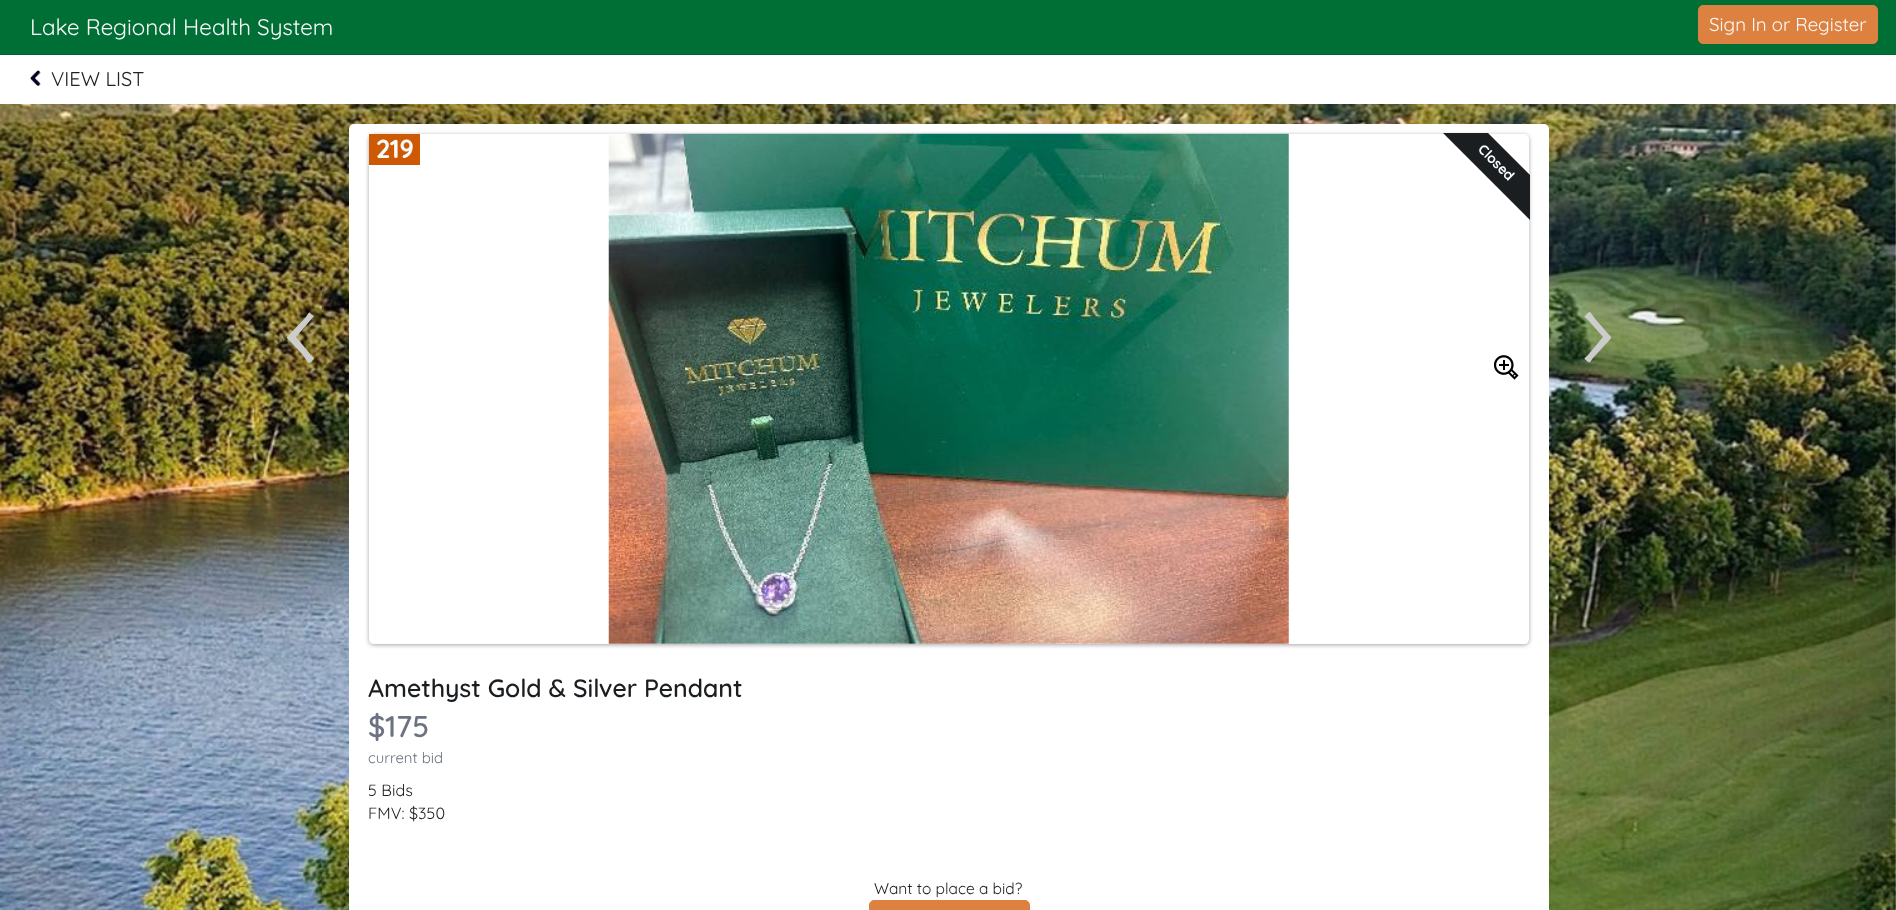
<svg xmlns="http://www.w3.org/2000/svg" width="1896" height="910">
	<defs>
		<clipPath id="clip1"><path d="M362 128H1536V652H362ZM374 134H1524C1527 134 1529 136 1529 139V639C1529 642 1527 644 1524 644H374C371 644 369 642 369 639V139C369 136 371 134 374 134Z" clip-rule="evenodd" /></clipPath>
	</defs>
	<rect width="100%" height="100%" fill="#FFFFFF" />
	<rect x="0" y="0" width="1896" height="54" fill="#006F35" />
	<rect x="0" y="54" width="1896" height="1" fill="#006430" />
	<text x="30" y="35" font-family="Quicksand" font-size="22.5" fill="#FAFAFA">Lake Regional Health System</text>
	<rect x="1698.5" y="5.5" width="179" height="38" rx="4.5" fill="#DC813F" stroke="#DC813F" />
	<text x="1709" y="31" font-family="Quicksand" font-size="18.75" fill="#FAFAFA">Sign In or Register</text>
	<image x="30" y="70" width="11" height="16" href="assets/img1.png" />
	<text x="51" y="86" font-family="Quicksand" font-size="20" fill="#222222">VIEW LIST</text>
	<image x="0" y="104" width="1896" height="806" href="assets/img2.png" />
	<rect x="349" y="124" width="1200" height="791" rx="5" fill="#FFFFFF" />
	<path d="M287 338L302 354C309 362 307 366 313 360C315 358 314 358 311 355L296 337L314 316L311 314C309 311 309 313 306 317L287 337Z" fill="#CCCCCC" />
	<g clip-path="url(#clip1)">
		<rect x="369" y="135" width="1160" height="510" rx="5" fill="#221919" fill-opacity="0.4" filter="blur(2px)" />
	</g>
	<rect x="369" y="134" width="51" height="31" fill="#CD5904" />
	<text x="376" y="158" font-family="Quicksand" font-size="26" font-weight="700" fill="#FAFAFA">219</text>
	<rect x="609" y="643" width="680" height="1" fill="#FFFFFF" />
	<image x="608" y="133" width="681" height="511" href="assets/img3.png" />
	<path d="M1530 220L1443 133H1488L1530 175Z" fill="#1B1E21" />
	<text x="1477" y="150" transform="rotate(45 1477 150)" font-family="Quicksand" font-size="14" font-weight="700" fill="#FAFAFA">Closed</text>
	<image x="1494" y="355" width="25" height="25" href="assets/img4.png" />
	<text x="368" y="697" font-family="Quicksand" font-size="25" font-weight="500" fill="#1B1E21">Amethyst Gold &amp; Silver Pendant</text>
	<text x="368" y="737" font-family="Quicksand" font-size="30" font-weight="500" fill="#6B7280">$175</text>
	<text x="368" y="763" font-family="Quicksand" font-size="15" fill="#6B7280">current bid</text>
	<g font-family="Quicksand" font-size="16.25" fill="#1B1E21">
		<text x="368" y="796">5 Bids</text>
		<text x="368" y="819">FMV: $350</text>
	</g>
	<text x="874" y="894" font-family="Quicksand" font-size="15.6" fill="#1B1E21">Want to place a bid?</text>
	<rect x="869.5" y="900.5" width="160" height="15" rx="4.5" fill="#DC813F" stroke="#DC813F" />
	<path d="M1611 337L1597 321C1590 313 1591 309 1586 315C1583 317 1585 317 1588 320L1603 337L1588 355C1584 359 1583 358 1587 361C1590 364 1590 362 1593 358L1604 346C1605 345 1612 338 1611 337Z" fill="#CCCCCC" />
</svg>
